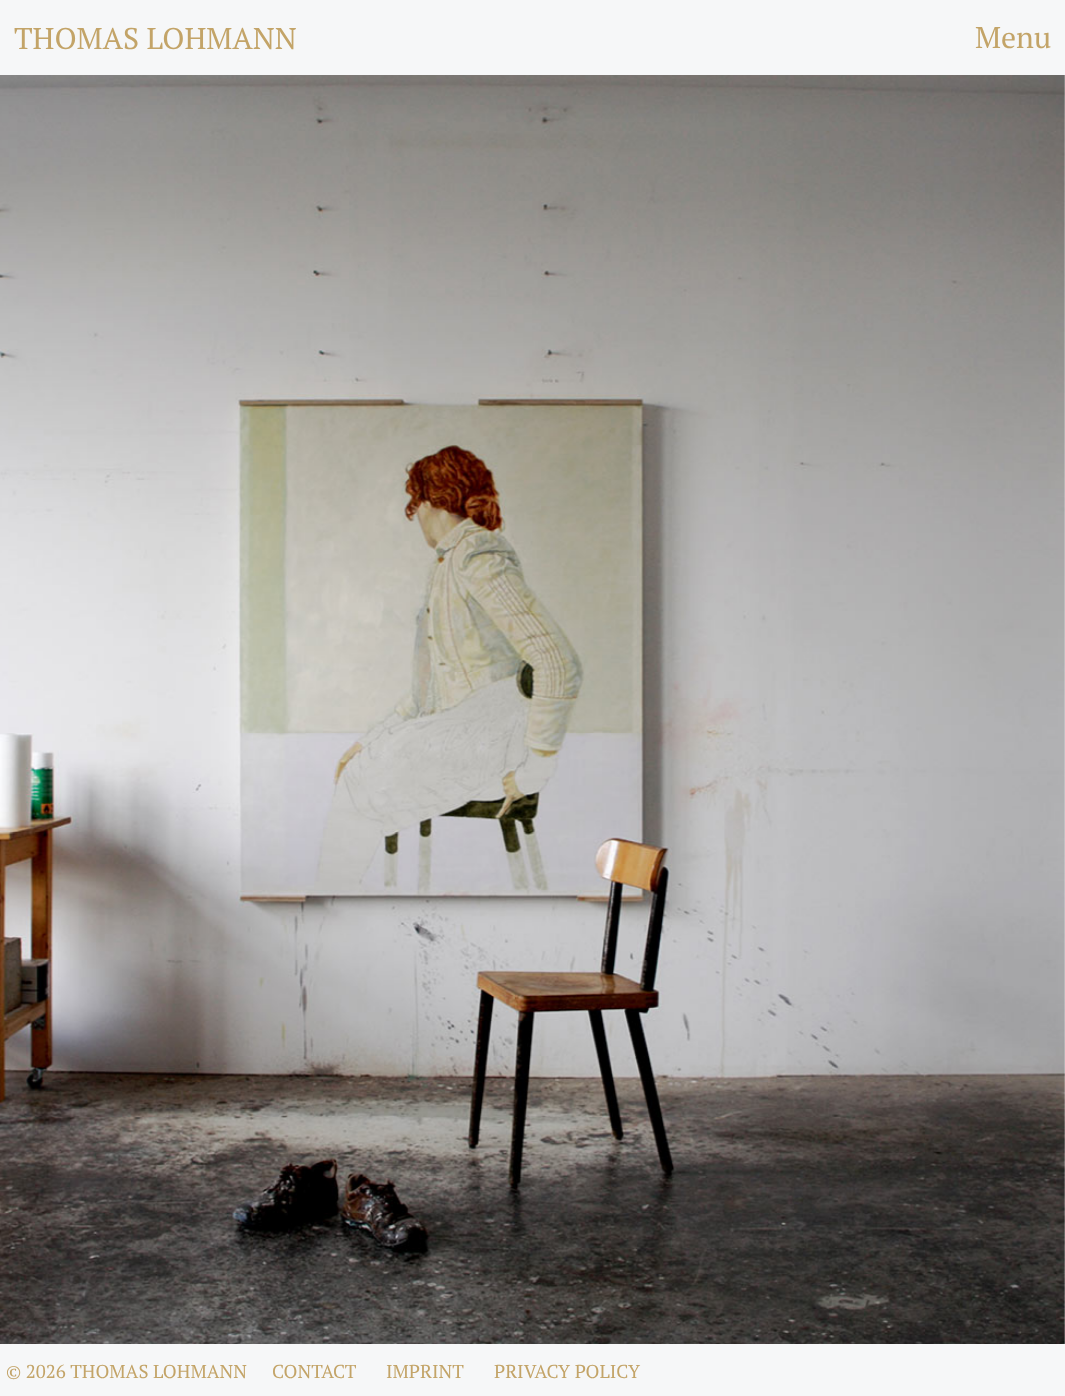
<svg xmlns="http://www.w3.org/2000/svg" width="1065" height="1396">
	<rect width="100%" height="100%" fill="#FFFFFF" />
	<image x="0" y="75" width="1065" height="1269" href="assets/img1.png" />
	<rect x="0" y="0" width="1065" height="75" fill="#F6F7F8" />
	<g font-family="PT Serif" font-size="30" fill="#C3A468">
		<text x="14" y="49">THOMAS LOHMANN</text>
		<text x="975" y="48">Menu</text>
	</g>
	<rect x="0" y="1344" width="1065" height="52" fill="#F6F7F8" />
	<g font-family="PT Serif" font-size="18.75" fill="#C3A468">
		<text x="6" y="1378">© 2026 THOMAS LOHMANN</text>
		<text x="272" y="1378">CONTACT</text>
		<text x="386" y="1378">IMPRINT</text>
		<text x="494" y="1378">PRIVACY POLICY</text>
	</g>
</svg>
